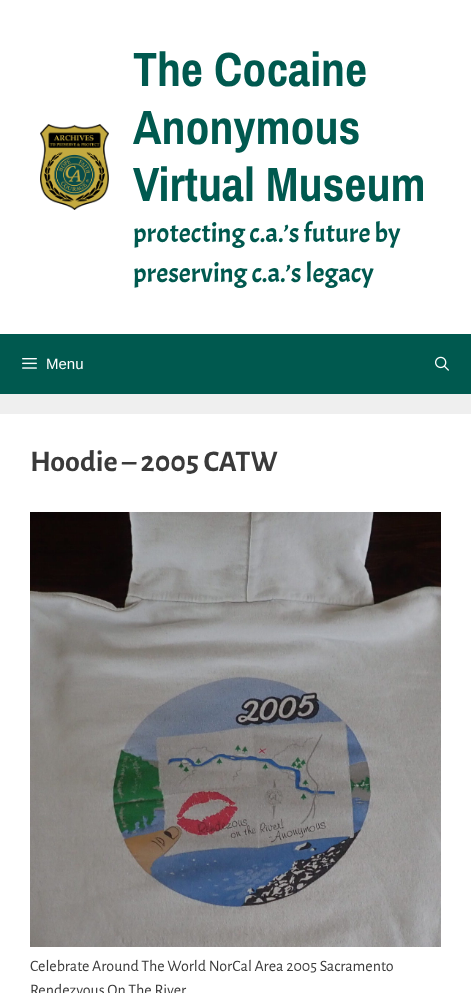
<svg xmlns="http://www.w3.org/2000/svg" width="471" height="993">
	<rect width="100%" height="100%" fill="#EFEFEF" />
	<rect x="0" y="0" width="471" height="334" fill="#FFFFFF" />
	<image x="40" y="124" width="69" height="86" href="assets/img1.png" />
	<g font-family="Archivo Narrow" font-size="48" font-weight="700" fill="#00594F">
		<text x="133" y="86">The Cocaine</text>
		<text x="133" y="144">Anonymous</text>
		<text x="133" y="201">Virtual Museum</text>
	</g>
	<g font-family="Acme" font-size="27" fill="#00594F">
		<text x="133" y="242">protecting c.a.’s future by</text>
		<text x="133" y="282">preserving c.a.’s legacy</text>
	</g>
	<rect x="0" y="334" width="471" height="60" fill="#00594F" />
	<image x="22" y="358" width="15" height="11" href="assets/img2.png" />
	<text x="46" y="369" font-family="Liberation Sans" font-size="15" fill="#FFFFFF">Menu</text>
	<image x="435" y="356" width="14" height="15" href="assets/img3.png" />
	<rect x="0" y="414" width="471" height="579" fill="#FFFFFF" />
	<text x="30" y="471" font-family="Alegreya Sans" font-size="30" font-weight="700" fill="#3A3A3A">Hoodie – 2005 CATW</text>
	<image x="30" y="512" width="411" height="435" href="assets/img4.png" />
	<g font-family="Alegreya Sans" font-size="16" fill="#3A3A3A">
		<text x="30" y="971">Celebrate Around The World NorCal Area 2005 Sacramento</text>
		<text x="30" y="995">Rendezvous On The River</text>
	</g>
</svg>
